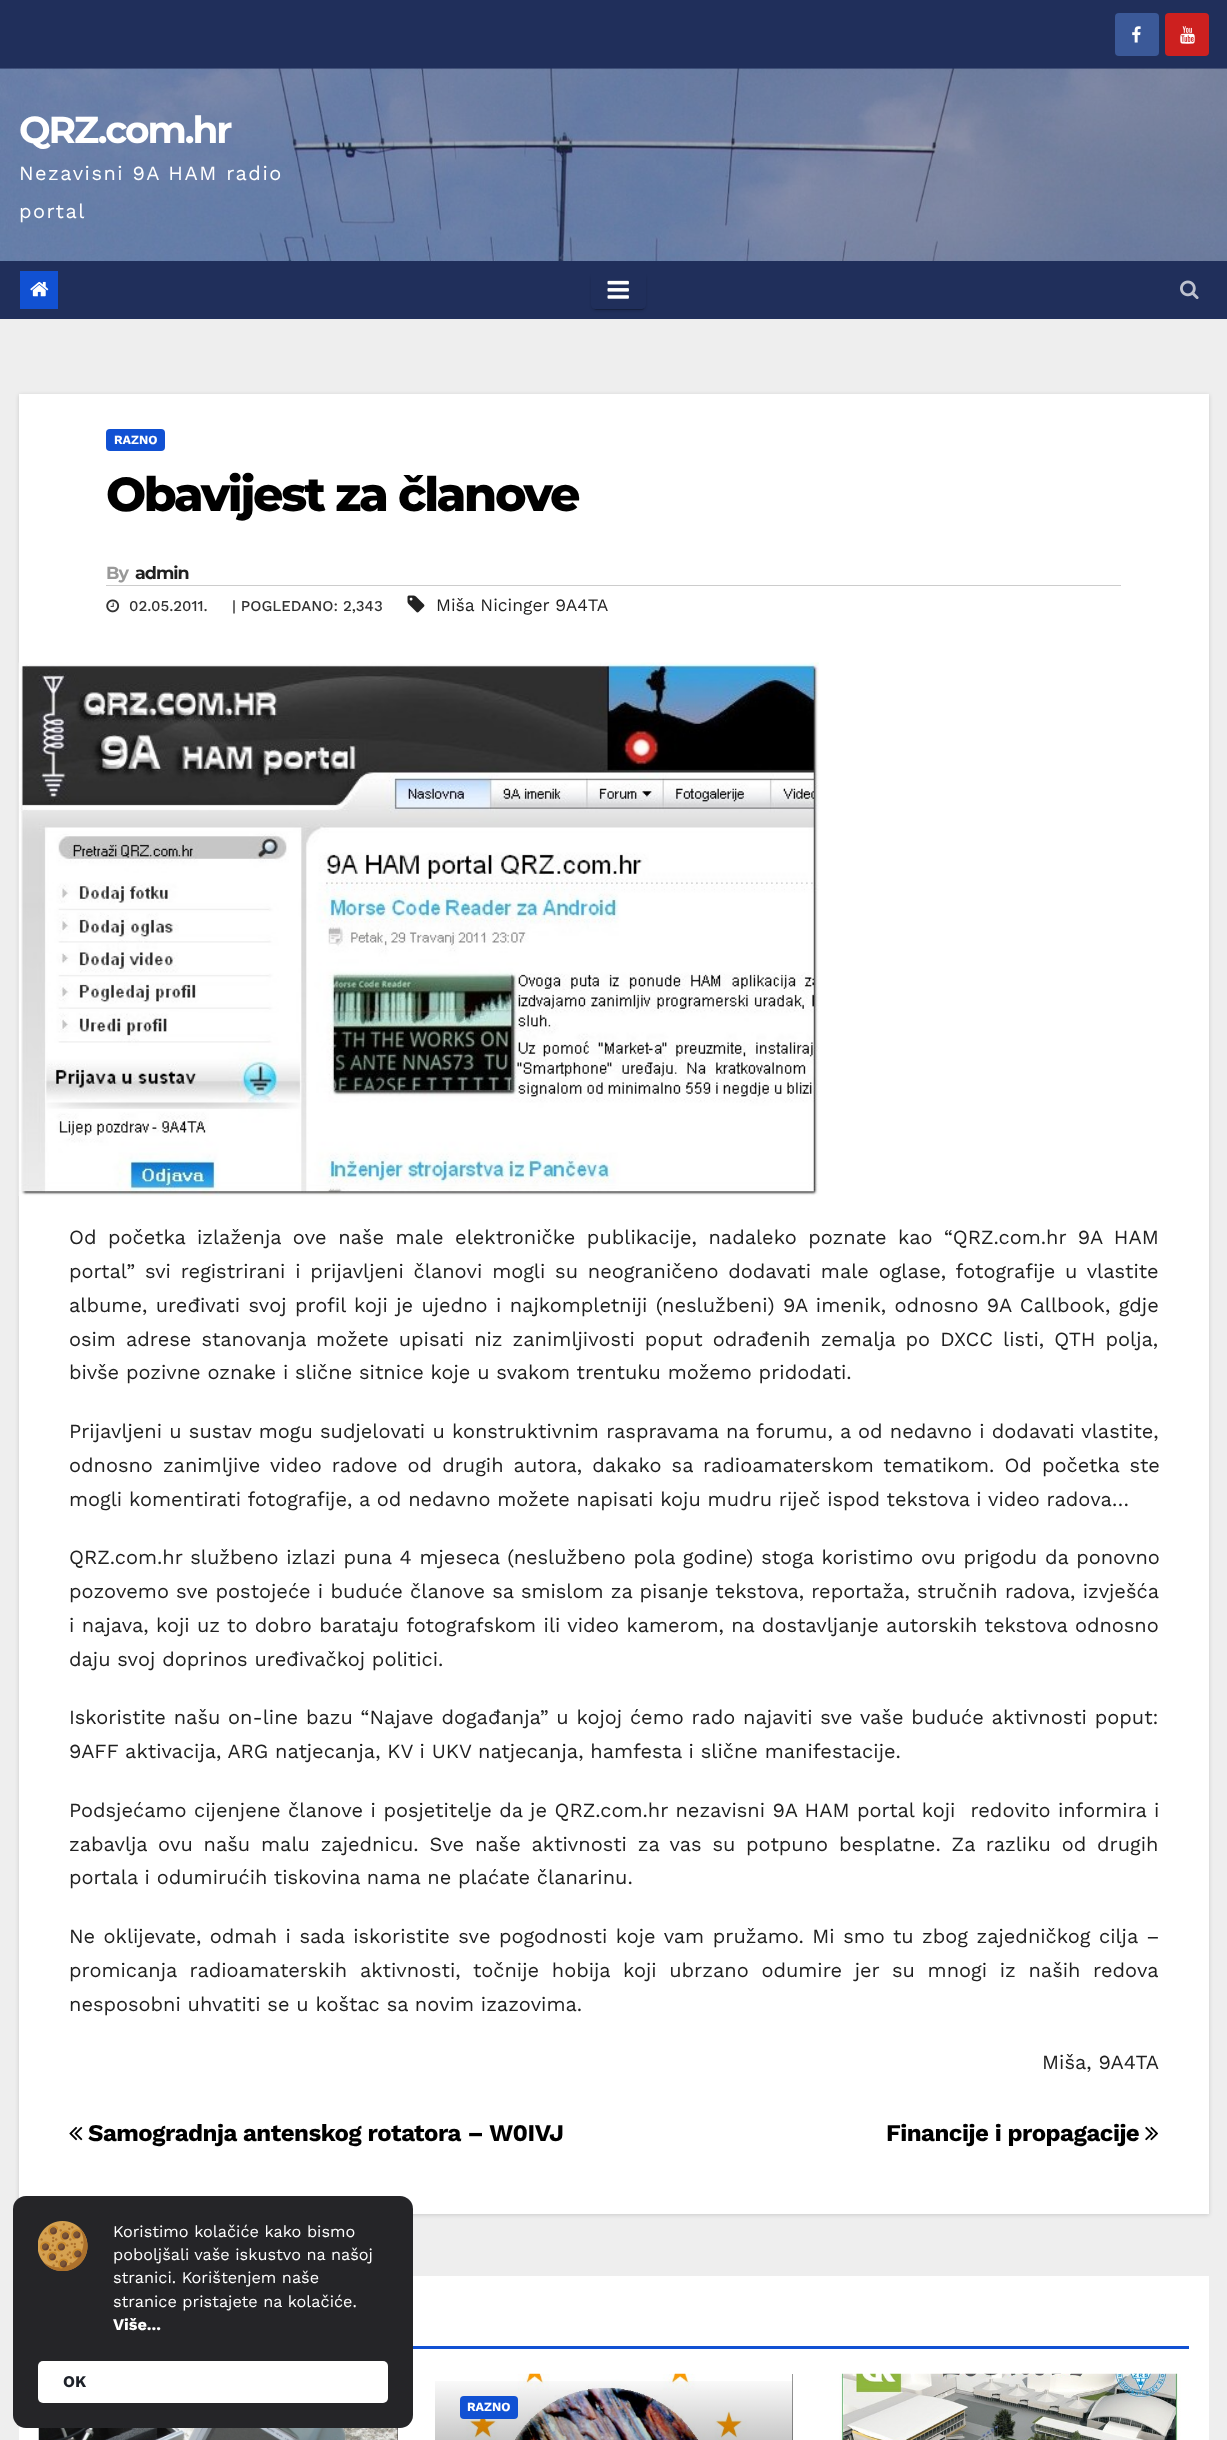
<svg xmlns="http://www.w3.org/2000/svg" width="1227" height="2440">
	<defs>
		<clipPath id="clip1"><path d="M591 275H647V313H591ZM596 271H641C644 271 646 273 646 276V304C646 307 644 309 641 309H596C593 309 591 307 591 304V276C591 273 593 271 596 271Z" clip-rule="evenodd" /></clipPath>
		<clipPath id="clip2"><path d="M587 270H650V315H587ZM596 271H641C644 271 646 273 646 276V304C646 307 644 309 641 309H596C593 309 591 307 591 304V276C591 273 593 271 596 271Z" clip-rule="evenodd" /></clipPath>
		<linearGradient id="g1" gradientUnits="userSpaceOnUse" x1="614" y1="2374" x2="614" y2="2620"><stop offset="0" stop-color="#000000" stop-opacity="0" /><stop offset="0.5" stop-color="#000000" stop-opacity="0.4" /><stop offset="1" stop-color="#000000" stop-opacity="0.7" /></linearGradient>
	</defs>
	<rect width="100%" height="100%" fill="#EEEEEE" />
	<rect x="0" y="0" width="1227" height="69" fill="#202F5B" />
	<rect x="1115" y="13" width="44" height="43" rx="4" fill="#3B5998" />
	<image x="1132" y="26" width="9" height="17" href="assets/img1.png" />
	<rect x="1165" y="13" width="44" height="43" rx="4" fill="#CD201F" />
	<image x="1180" y="26" width="15" height="18" href="assets/img2.png" />
	<image x="0" y="68" width="1227" height="193" href="assets/img3.png" />
	<text x="19" y="143" font-family="Montserrat" font-size="37.5" font-weight="700" letter-spacing="-2.1" fill="#FFFFFF">QRZ.com.hr</text>
	<g font-family="Work Sans" font-size="20" letter-spacing="1.5" fill="#FFFFFF">
		<text x="19" y="180">Nezavisni 9A HAM radio</text>
		<text x="19" y="218">portal</text>
	</g>
	<rect x="0" y="261" width="1227" height="58" fill="#202F5B" />
	<rect x="20" y="271" width="38" height="38" fill="#1151D3" />
	<image x="30" y="281" width="19" height="16" href="assets/img4.png" />
	<g clip-path="url(#clip1)">
		<rect x="594" y="278" width="50" height="32" rx="2.5" fill="#000000" fill-opacity="0.2" filter="blur(0.5px)" />
	</g>
	<g clip-path="url(#clip2)">
		<rect x="591" y="274" width="55" height="37" rx="5" fill="#000000" fill-opacity="0.14" filter="blur(1px)" />
	</g>
	<image x="607" y="280" width="22" height="19" href="assets/img5.png" />
	<image x="1180" y="280" width="19" height="20" href="assets/img6.png" />
	<rect x="19" y="395" width="1190" height="1820" fill="#000000" fill-opacity="0.15" filter="blur(2px)" />
	<rect x="19" y="394" width="1190" height="1820" fill="#FFFFFF" />
	<rect x="106" y="429" width="59" height="22" rx="4" fill="#1151D3" />
	<text x="114" y="444" font-family="Work Sans" font-size="12.5" font-weight="700" fill="#FFFFFF">RAZNO</text>
	<text x="106" y="511" font-family="Montserrat" font-size="47.5" font-weight="800" letter-spacing="-2.4" fill="#000000">Obavijest za članove</text>
	<rect x="106" y="585" width="1015" height="1" fill="#CCCCCC" />
	<text x="106" y="579" font-family="Montserrat" font-size="17.5" font-weight="700" letter-spacing="-1" fill="#999999">By</text>
	<text x="135" y="579" font-family="Montserrat" font-size="17.5" font-weight="700" letter-spacing="-1" fill="#212121">admin</text>
	<image x="106" y="599" width="14" height="14" href="assets/img7.png" />
	<g font-family="Work Sans" font-size="15" font-weight="500" fill="#333333">
		<text x="129" y="611">02.05.2011.</text>
		<text x="232" y="611">| POGLEDANO: 2,343</text>
	</g>
	<image x="407" y="595" width="18" height="18" href="assets/img8.png" />
	<text x="436" y="611" font-family="Work Sans" font-size="17.5" fill="#212121">Miša Nicinger 9A4TA</text>
	<image x="18" y="662" width="801" height="534" href="assets/img9.png" />
	<g font-family="Work Sans" font-size="20" fill="#212121">
		<text x="69" y="1244" word-spacing="4.75">Od početka izlaženja ove naše male elektroničke publikacije, nadaleko poznate kao “QRZ.com.hr 9A HAM</text>
		<text x="69" y="1278" word-spacing="3">portal” svi registrirani i prijavljeni članovi mogli su neograničeno dodavati male oglase, fotografije u vlastite</text>
		<text x="69" y="1312" word-spacing="1.6">albume, uređivati svoj profil koji je ujedno i najkompletniji (neslužbeni) 9A imenik, odnosno 9A Callbook, gdje</text>
		<text x="69" y="1346" word-spacing="3.25">osim adrese stanovanja možete upisati niz zanimljivosti poput odrađenih zemalja po DXCC listi, QTH polja,</text>
		<text x="69" y="1379">bivše pozivne oznake i slične sitnice koje u svakom trentuku možemo pridodati.</text>
		<text x="69" y="1438" word-spacing="0.4">Prijavljeni u sustav mogu sudjelovati u konstruktivnim raspravama na forumu, a od nedavno i dodavati vlastite,</text>
		<text x="69" y="1472" word-spacing="3.25">odnosno zanimljive video radove od drugih autora, dakako sa radioamaterskom tematikom. Od početka ste</text>
		<text x="69" y="1506">mogli komentirati fotografije, a od nedavno možete napisati koju mudru riječ ispod tekstova i video radova…</text>
		<text x="69" y="1564" word-spacing="1">QRZ.com.hr službeno izlazi puna 4 mjeseca (neslužbeno pola godine) stoga koristimo ovu prigodu da ponovno</text>
		<text x="69" y="1598" word-spacing="0.4">pozovemo sve postojeće i buduće članove sa smislom za pisanje tekstova, reportaža, stručnih radova, izvješća</text>
		<text x="69" y="1632" word-spacing="0.6">i najava, koji uz to dobro barataju fotografskom ili video kamerom, na dostavljanje autorskih tekstova odnosno</text>
		<text x="69" y="1666">daju svoj doprinos uređivačkoj politici.</text>
		<text x="69" y="1724" word-spacing="1">Iskoristite našu on-line bazu “Najave događanja” u kojoj ćemo rado najaviti sve vaše buduće aktivnosti poput:</text>
		<text x="69" y="1758">9AFF aktivacija, ARG natjecanja, KV i UKV natjecanja, hamfesta i slične manifestacije.</text>
		<text x="69" y="1817" word-spacing="0.7" xml:space="preserve">Podsjećamo cijenjene članove i posjetitelje da je QRZ.com.hr nezavisni 9A HAM portal koji  redovito informira i</text>
		<text x="69" y="1851" word-spacing="4">zabavlja ovu našu malu zajednicu. Sve naše aktivnosti za vas su potpuno besplatne. Za razliku od drugih</text>
		<text x="69" y="1884">portala i odumirućih tiskovina nama ne plaćate članarinu.</text>
		<text x="69" y="1943" word-spacing="1.7">Ne oklijevate, odmah i sada iskoristite sve pogodnosti koje vam pružamo. Mi smo tu zbog zajedničkog cilja –</text>
		<text x="69" y="1977" word-spacing="5.9">promicanja radioamaterskih aktivnosti, točnije hobija koji ubrzano odumire jer su mnogi iz naših redova</text>
		<text x="69" y="2011">nesposobni uhvatiti se u koštac sa novim izazovima.</text>
		<text x="1042" y="2069">Miša, 9A4TA</text>
	</g>
	<image x="69" y="2126" width="14" height="15" href="assets/img10.png" />
	<g font-family="Work Sans" font-size="24" font-weight="700" letter-spacing="-0.5" fill="#000000">
		<text x="88" y="2141">Samogradnja antenskog rotatora – W0IVJ</text>
		<text x="886" y="2141">Financije i propagacije</text>
	</g>
	<image x="1145" y="2126" width="14" height="15" href="assets/img11.png" />
	<rect x="19" y="2276" width="1190" height="164" fill="#FFFFFF" />
	<rect x="413" y="2346" width="776" height="3" fill="#1151D3" />
	<rect x="792" y="2374" width="1" height="66" fill="#333333" />
	<image x="435" y="2373" width="358" height="67" href="assets/img12.png" />
	<rect x="435" y="2381" width="358" height="59" fill="url(#g1)" />
	<rect x="460" y="2396" width="58" height="23" rx="4" fill="#1151D3" />
	<text x="467" y="2411" font-family="Work Sans" font-size="12.5" font-weight="700" fill="#FFFFFF">RAZNO</text>
	<image x="830" y="2373" width="359" height="67" href="assets/img13.png" />
	<rect x="397" y="2428" width="1" height="12" fill="#333333" />
	<image x="38" y="2428" width="360" height="12" href="assets/img14.png" />
	<rect x="13" y="2196" width="400" height="232" rx="13" fill="#252528" />
	<image x="38" y="2221" width="50" height="50" href="assets/img15.png" />
	<g font-family="Work Sans" font-size="16.25" fill="#FFFFFF">
		<text x="113" y="2237">Koristimo kolačiće kako bismo</text>
		<text x="113" y="2260">poboljšali vaše iskustvo na našoj</text>
		<text x="113" y="2283">stranici. Korištenjem naše</text>
		<text x="113" y="2307">stranice pristajete na kolačiće.</text>
	</g>
	<text x="113" y="2330" font-family="Work Sans" font-size="16.25" font-weight="700" fill="#FFFFFF">Više...</text>
	<rect x="38" y="2361" width="350" height="42" rx="5" fill="#FFFFFF" />
	<text x="63" y="2387" font-family="Work Sans" font-size="16.25" font-weight="700" fill="#1D2129">OK</text>
</svg>
